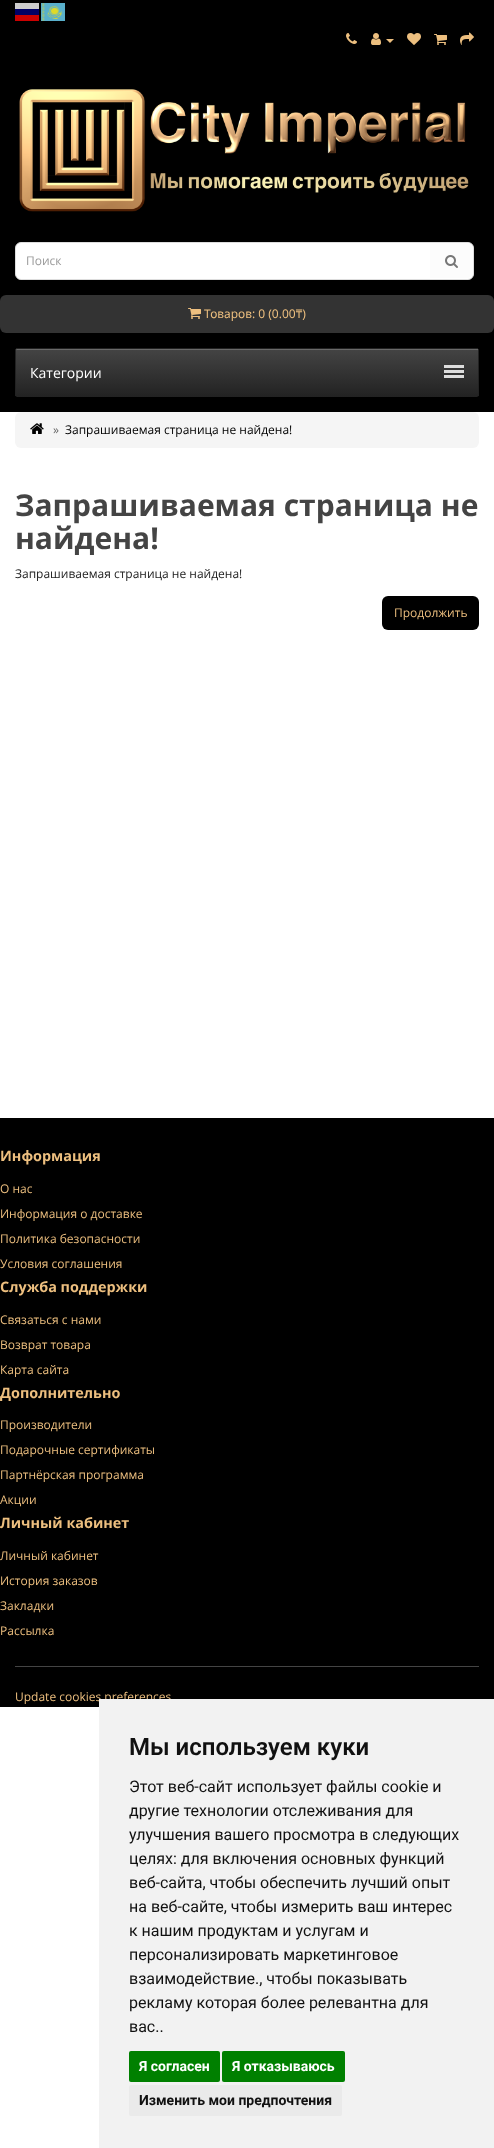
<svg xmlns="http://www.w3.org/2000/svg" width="494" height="2148">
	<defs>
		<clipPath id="clip1"><rect x="15" y="348" width="464" height="49" rx="2" /></clipPath>
		<linearGradient id="g1" gradientUnits="userSpaceOnUse" x1="247" y1="349" x2="247" y2="397"><stop offset="0" stop-color="#444444" /><stop offset="1" stop-color="#222222" /></linearGradient>
	</defs>
	<rect width="100%" height="100%" fill="#FFFFFF" />
	<rect x="0" y="0" width="494" height="412" fill="#000000" />
	<rect x="15" y="3" width="24" height="6" fill="#CCCCCC" />
	<image x="41" y="3" width="24" height="18" href="assets/img1.png" />
	<rect x="15" y="9" width="24" height="6" fill="#010165" />
	<rect x="15" y="15" width="24" height="6" fill="#CB0101" />
	<image x="346" y="33" width="11" height="11" href="assets/img2.png" />
	<image x="371" y="33" width="10" height="12" href="assets/img3.png" />
	<path d="M386 39H394L390 43Z" fill="#EDBF7F" />
	<image x="407" y="33" width="14" height="12" href="assets/img4.png" />
	<image x="434" y="34" width="13" height="11" href="assets/img5.png" />
	<image x="460" y="32" width="14" height="13" href="assets/img6.png" />
	<image x="19" y="89" width="450" height="123" href="assets/img7.png" />
	<rect x="15.5" y="242.5" width="458" height="37" rx="5.5" fill="#FFFFFF" stroke="#DDDDDD" />
	<text x="26" y="265" font-family="Open Sans" font-size="12" fill="#999999">Поиск</text>
	<path d="M430 243H467C470.5 243 473 245.5 473 249V272C473 275.5 470.5 278 467 278H430Z" fill="#FCFCFC" />
	<image x="445" y="255" width="13" height="13" href="assets/img8.png" />
	<rect x="0" y="295" width="494" height="38" rx="6" fill="#333333" />
	<image x="188" y="308" width="13" height="11" href="assets/img9.png" />
	<text x="204" y="318" font-family="Noto Sans" font-size="12" fill="#EDBF7F">Товаров: 0 (0.00₸)</text>
	<g clip-path="url(#clip1)">
		<path d="M15 349H479V395C479 396 478 397 477 397H17C16 397 15 396 15 395Z" fill="url(#g1)" />
	</g>
	<path d="M17 350H477C478 350 478 350 478 351V349H247H17L16 350V351C16 350 16 350 17 350Z" fill="#696969" />
	<rect x="16" y="348" width="462" height="1" fill="#222222" />
	<rect x="478" y="349" width="1" height="47" fill="#222222" />
	<rect x="15" y="349" width="1" height="47" fill="#222222" />
	<text x="30" y="378" font-family="Open Sans" font-size="14" fill="#FFFFFF">Категории</text>
	<rect x="444" y="365" width="20" height="3" fill="#DDDDDD" />
	<rect x="444" y="370" width="20" height="3" fill="#DDDDDD" />
	<rect x="444" y="375" width="20" height="3" fill="#DDDDDD" />
	<rect x="15" y="412" width="464" height="36" rx="6" fill="#F5F5F5" />
	<image x="30" y="423" width="14" height="11" href="assets/img10.png" />
	<text x="53" y="434" font-family="Open Sans" font-size="12" fill="#666666">»</text>
	<text x="65" y="434" font-family="Open Sans" font-size="12" fill="#000000">Запрашиваемая страница не найдена!</text>
	<g font-family="Open Sans" font-size="30" font-weight="700" fill="#444444">
		<text x="15" y="516">Запрашиваемая страница не</text>
		<text x="15" y="549">найдена!</text>
	</g>
	<text x="15" y="578" font-family="Open Sans" font-size="12" fill="#222222">Запрашиваемая страница не найдена!</text>
	<rect x="382" y="596" width="97" height="34" rx="6" fill="#000000" />
	<text x="394" y="617" font-family="Open Sans" font-size="12" fill="#EDBF7F">Продолжить</text>
	<rect x="0" y="1118" width="494" height="589" fill="#000000" />
	<text x="0" y="1161" font-family="Open Sans" font-size="14.4" font-weight="700" fill="#EDBF7F">Информация</text>
	<g font-family="Open Sans" font-size="12" fill="#EDBF7F">
		<text x="0" y="1193">О нас</text>
		<text x="0" y="1218">Информация о доставке</text>
		<text x="0" y="1243">Политика безопасности</text>
		<text x="0" y="1268">Условия соглашения</text>
	</g>
	<text x="0" y="1292" font-family="Open Sans" font-size="14.4" font-weight="700" fill="#EDBF7F">Служба поддержки</text>
	<g font-family="Open Sans" font-size="12" fill="#EDBF7F">
		<text x="0" y="1324">Связаться с нами</text>
		<text x="0" y="1349">Возврат товара</text>
		<text x="0" y="1374">Карта сайта</text>
	</g>
	<text x="0" y="1398" font-family="Open Sans" font-size="14.4" font-weight="700" fill="#EDBF7F">Дополнительно</text>
	<g font-family="Open Sans" font-size="12" fill="#EDBF7F">
		<text x="0" y="1429">Производители</text>
		<text x="0" y="1454">Подарочные сертификаты</text>
		<text x="0" y="1479">Партнёрская программа</text>
		<text x="0" y="1504">Акции</text>
	</g>
	<text x="0" y="1528" font-family="Open Sans" font-size="14.4" font-weight="700" fill="#EDBF7F">Личный кабинет</text>
	<g font-family="Open Sans" font-size="12" fill="#EDBF7F">
		<text x="0" y="1560">Личный кабинет</text>
		<text x="0" y="1585">История заказов</text>
		<text x="0" y="1610">Закладки</text>
		<text x="0" y="1635">Рассылка</text>
	</g>
	<rect x="15" y="1666" width="464" height="1" fill="#444444" />
	<text x="15" y="1701" font-family="Open Sans" font-size="12" fill="#EDBF7F">Update cookies preferences</text>
	<rect x="99" y="1699" width="395" height="449" fill="#F2F2F2" />
	<text x="129" y="1755" font-family="Roboto" font-size="24" font-weight="600" fill="#111111">Мы используем куки</text>
	<g font-family="Roboto" font-size="16" fill="#111111">
		<text x="129" y="1792">Этот веб-сайт использует файлы cookie и</text>
		<text x="129" y="1816">другие технологии отслеживания для</text>
		<text x="129" y="1840">улучшения вашего просмотра в следующих</text>
		<text x="129" y="1864">целях: для включения основных функций</text>
		<text x="129" y="1888">веб-сайта, чтобы обеспечить лучший опыт</text>
		<text x="129" y="1912">на веб-сайте, чтобы измерить ваш интерес</text>
		<text x="129" y="1936">к нашим продуктам и услугам и</text>
		<text x="129" y="1960">персонализировать маркетинговое</text>
		<text x="129" y="1984">взаимодействие., чтобы показывать</text>
		<text x="129" y="2008">рекламу которая более релевантна для</text>
		<text x="129" y="2032">вас..</text>
	</g>
	<rect x="129" y="2051" width="91" height="31" rx="2" fill="#008000" />
	<text x="139" y="2071" font-family="Roboto" font-size="14" font-weight="700" fill="#FFFFFF">Я согласен</text>
	<rect x="222" y="2051" width="123" height="31" rx="2" fill="#008000" />
	<text x="232" y="2071" font-family="Roboto" font-size="14" font-weight="700" fill="#FFFFFF">Я отказываюсь</text>
	<rect x="129" y="2085" width="213" height="31" rx="2" fill="#EAEAEA" />
	<text x="139" y="2105" font-family="Roboto" font-size="14" font-weight="700" fill="#111111">Изменить мои предпочтения</text>
</svg>
